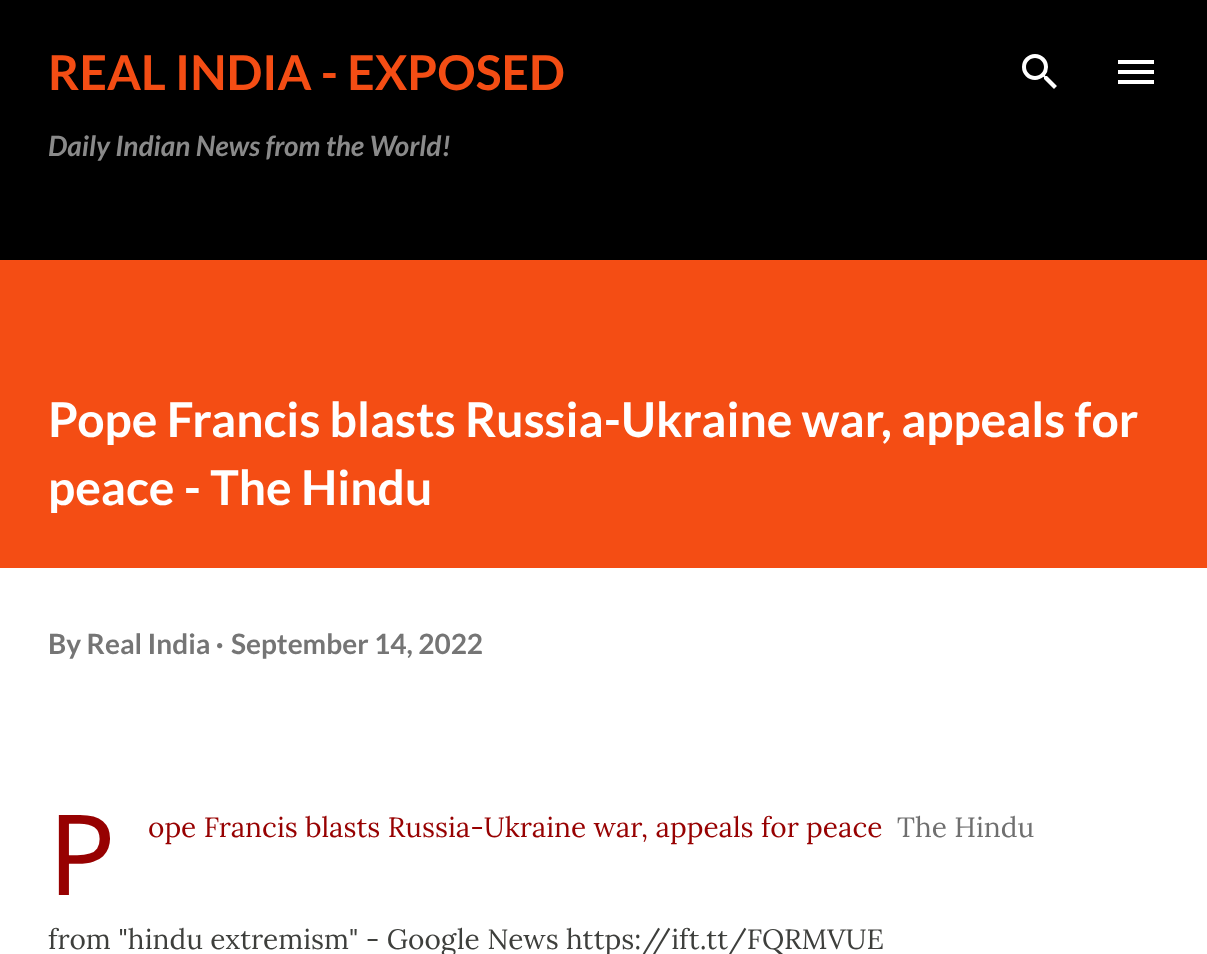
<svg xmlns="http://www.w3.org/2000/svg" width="1207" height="954">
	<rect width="100%" height="100%" fill="#FFFFFF" />
	<rect x="0" y="0" width="1207" height="260" fill="#000000" />
	<text x="48" y="90" font-family="Lato" font-size="48" font-weight="700" fill="#F44D14">REAL INDIA - EXPOSED</text>
	<text x="48" y="156" font-family="Lato" font-size="28" font-weight="700" font-style="italic" fill="#8A8A8A">Daily Indian News from the World!</text>
	<image x="1022" y="54" width="35" height="35" href="assets/img1.png" />
	<image x="1118" y="60" width="36" height="24" href="assets/img2.png" />
	<rect x="0" y="260" width="1207" height="308" fill="#F44D14" />
	<g font-family="Lato" font-size="48" font-weight="700" fill="#FFFFFF">
		<text x="48" y="437">Pope Francis blasts Russia-Ukraine war, appeals for</text>
		<text x="48" y="505">peace - The Hindu</text>
	</g>
	<g font-family="Lato" font-size="28" font-weight="700" fill="#757575">
		<text x="48" y="654">By Real India ·</text>
		<text x="231" y="654">September 14, 2022</text>
	</g>
	<text x="48" y="895" font-family="Noto Sans" font-size="112" fill="#970101">P</text>
	<text x="148" y="837" font-family="Lora" font-size="28" fill="#970101">ope Francis blasts Russia-Ukraine war, appeals for peace</text>
	<text x="897" y="837" font-family="Lora" font-size="28" fill="#6F6F6F">The Hindu</text>
	<text x="48" y="949" font-family="Lora" font-size="28" fill="#3E3F3C">from "hindu extremism" - Google News https://ift.tt/FQRMVUE</text>
</svg>
